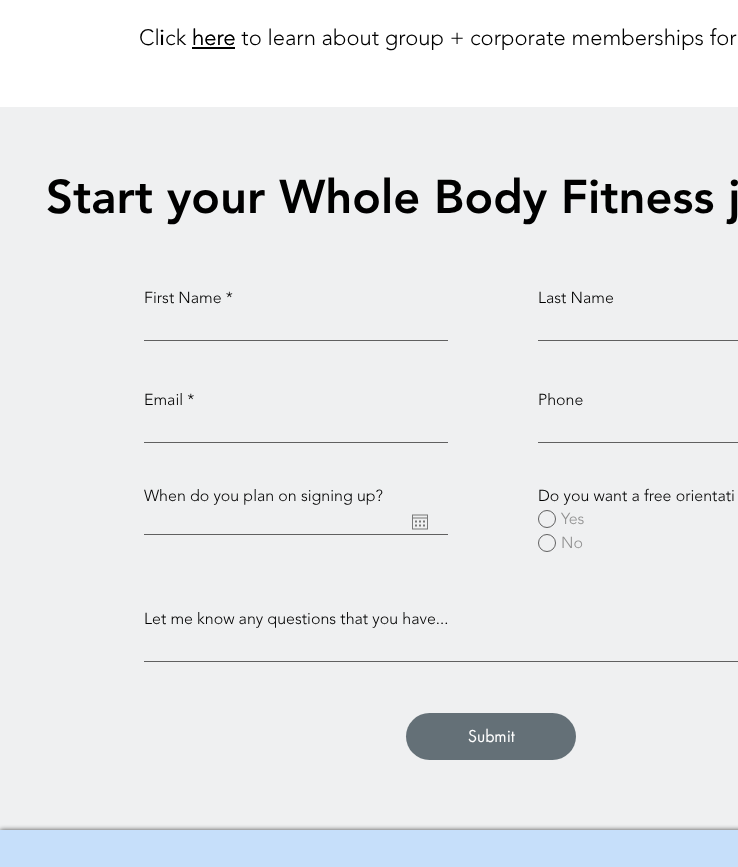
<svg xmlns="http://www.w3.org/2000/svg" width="738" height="867">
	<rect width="100%" height="100%" fill="#FFFFFF" />
	<text x="139" y="45" font-family="'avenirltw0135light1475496'" font-size="22" font-weight="300" fill="#000000">Click here to learn about group + corporate memberships for</text>
	<rect x="192" y="47" width="43" height="2" fill="#000000" />
	<g font-family="'avenirltw0135light1475496'" font-size="22" font-weight="300" fill="#000000">
		<text x="159" y="45">i</text>
		<text x="192" y="45">here</text>
	</g>
	<rect x="0" y="107" width="738" height="723" fill="#EFF0F1" />
	<text x="46" y="213" font-family="'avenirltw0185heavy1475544'" font-size="47" font-weight="900" fill="#000000">Start your Whole Body Fitness j</text>
	<text x="144" y="303" font-family="'avenirltw0135light1475496'" font-size="16" font-weight="300" fill="#000000">First Name *</text>
	<rect x="144" y="340" width="304" height="1" fill="#606060" />
	<text x="538" y="303" font-family="'avenirltw0135light1475496'" font-size="16" font-weight="300" fill="#000000">Last Name</text>
	<rect x="538" y="340" width="200" height="1" fill="#606060" />
	<text x="144" y="405" font-family="'avenirltw0135light1475496'" font-size="16" font-weight="300" fill="#000000">Email *</text>
	<rect x="144" y="442" width="304" height="1" fill="#606060" />
	<text x="538" y="405" font-family="'avenirltw0135light1475496'" font-size="16" font-weight="300" fill="#000000">Phone</text>
	<rect x="538" y="442" width="200" height="1" fill="#606060" />
	<text x="144" y="501" font-family="'avenirltw0135light1475496'" font-size="16" font-weight="300" fill="#000000">When do you plan on signing up?</text>
	<rect x="144" y="534" width="304" height="1" fill="#606060" />
	<image x="412" y="514" width="16" height="16" href="assets/img1.png" />
	<text x="538" y="501" font-family="'avenirltw0135light1475496'" font-size="16" font-weight="300" fill="#000000">Do you want a free orientati</text>
	<circle cx="547" cy="519" r="8.5" fill="none" stroke="#606060" />
	<text x="561" y="524" font-family="'avenirltw0135light1475496'" font-size="16" font-weight="300" fill="#909090">Yes</text>
	<circle cx="547" cy="543" r="8.5" fill="none" stroke="#606060" />
	<text x="561" y="548" font-family="'avenirltw0135light1475496'" font-size="16" font-weight="300" fill="#909090">No</text>
	<text x="144" y="624" font-family="'avenirltw0135light1475496'" font-size="16" font-weight="300" fill="#000000">Let me know any questions that you have...</text>
	<rect x="144" y="661" width="594" height="1" fill="#606060" />
	<rect x="406" y="713" width="170" height="47" rx="23.5" fill="#647077" />
	<text x="468" y="742" font-family="futura" font-size="16" fill="#FFFFFF">Submit</text>
	<rect x="0" y="830" width="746" height="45" fill="#000000" fill-opacity="0.7" filter="blur(2.5px)" />
	<rect x="0" y="830" width="738" height="37" fill="#C6DFFA" />
</svg>
